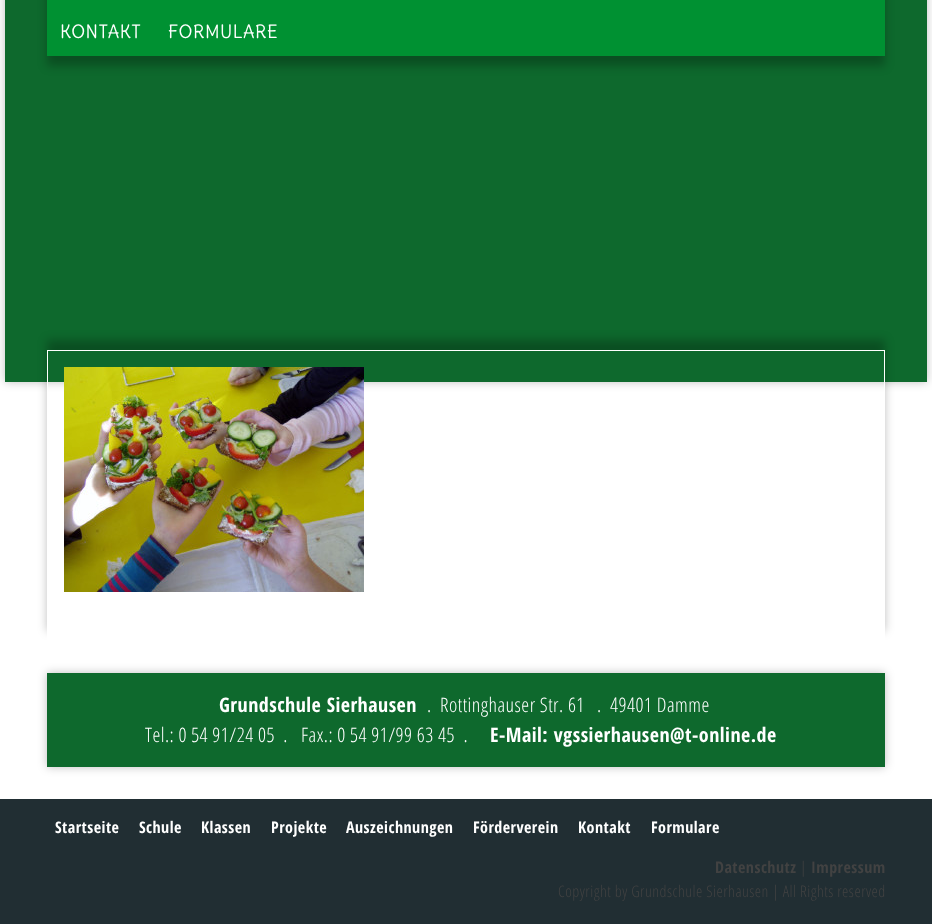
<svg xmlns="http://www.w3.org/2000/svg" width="932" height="924">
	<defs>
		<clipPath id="clip1"><path d="M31 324H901V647H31ZM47 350H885V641H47Z" clip-rule="evenodd" /></clipPath>
	</defs>
	<rect width="100%" height="100%" fill="#FFFFFF" />
	<rect x="5" y="-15" width="922" height="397" fill="#000000" fill-opacity="0.25" filter="blur(5px)" />
	<rect x="5" y="0" width="922" height="382" fill="#0E692D" />
	<rect x="47" y="-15" width="838" height="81" fill="#000000" fill-opacity="0.25" filter="blur(5px)" />
	<rect x="47" y="0" width="838" height="56" fill="#009132" />
	<g font-family="Delius" font-size="18" letter-spacing="0.48" fill="#FFFFFF">
		<text x="60" y="38">KONTAKT</text>
		<text x="168" y="38">FORMULARE</text>
	</g>
	<g clip-path="url(#clip1)">
		<rect x="47" y="340" width="838" height="291" fill="#000000" fill-opacity="0.25" filter="blur(5px)" />
	</g>
	<rect x="47.5" y="350.5" width="837" height="290" fill="none" stroke="#FFFFFF" />
	<image x="64" y="367" width="300" height="225" href="assets/img1.png" />
	<rect x="47" y="673" width="838" height="94" fill="#000000" fill-opacity="0.25" filter="blur(5px)" />
	<rect x="47" y="673" width="838" height="94" fill="#0E692D" />
	<text x="219" y="712" font-family="Open Sans Condensed" font-size="20" font-weight="700" letter-spacing="0.48" fill="#FFFFFF">Grundschule Sierhausen</text>
	<g font-family="Open Sans Condensed" font-size="20" font-weight="300" letter-spacing="0.48" fill="#FFFFFF">
		<text x="427" y="712" xml:space="preserve">.  Rottinghauser Str. 61</text>
		<text x="597" y="712" xml:space="preserve">.  49401 Damme</text>
		<text x="145" y="742" xml:space="preserve">Tel.: 0 54 91/24 05  .</text>
		<text x="301" y="742" xml:space="preserve">Fax.: 0 54 91/99 63 45  .</text>
	</g>
	<text x="490" y="742" font-family="Open Sans Condensed" font-size="20" font-weight="700" letter-spacing="0.48" fill="#FFFFFF">E-Mail: vgssierhausen@t-online.de</text>
	<rect x="0" y="799" width="932" height="125" fill="#212E33" />
	<g font-family="Open Sans Condensed" font-size="16" font-weight="700" letter-spacing="0.48" fill="#FFFFFF">
		<text x="55" y="833">Startseite</text>
		<text x="139" y="833">Schule</text>
		<text x="201" y="833">Klassen</text>
		<text x="271" y="833">Projekte</text>
		<text x="346" y="833">Auszeichnungen</text>
		<text x="473" y="833">Förderverein</text>
		<text x="578" y="833">Kontakt</text>
		<text x="651" y="833">Formulare</text>
	</g>
	<text x="715" y="873" font-family="Open Sans Condensed" font-size="16" font-weight="700" letter-spacing="0.48" fill="#424242">Datenschutz</text>
	<text x="800" y="873" font-family="Open Sans Condensed" font-size="16" font-weight="300" letter-spacing="0.48" fill="#424242">|</text>
	<text x="811" y="873" font-family="Open Sans Condensed" font-size="16" font-weight="700" letter-spacing="0.48" fill="#424242">Impressum</text>
	<text x="558" y="897" font-family="Open Sans Condensed" font-size="16" font-weight="300" letter-spacing="0.48" fill="#424242">Copyright by Grundschule Sierhausen | All Rights reserved</text>
</svg>
